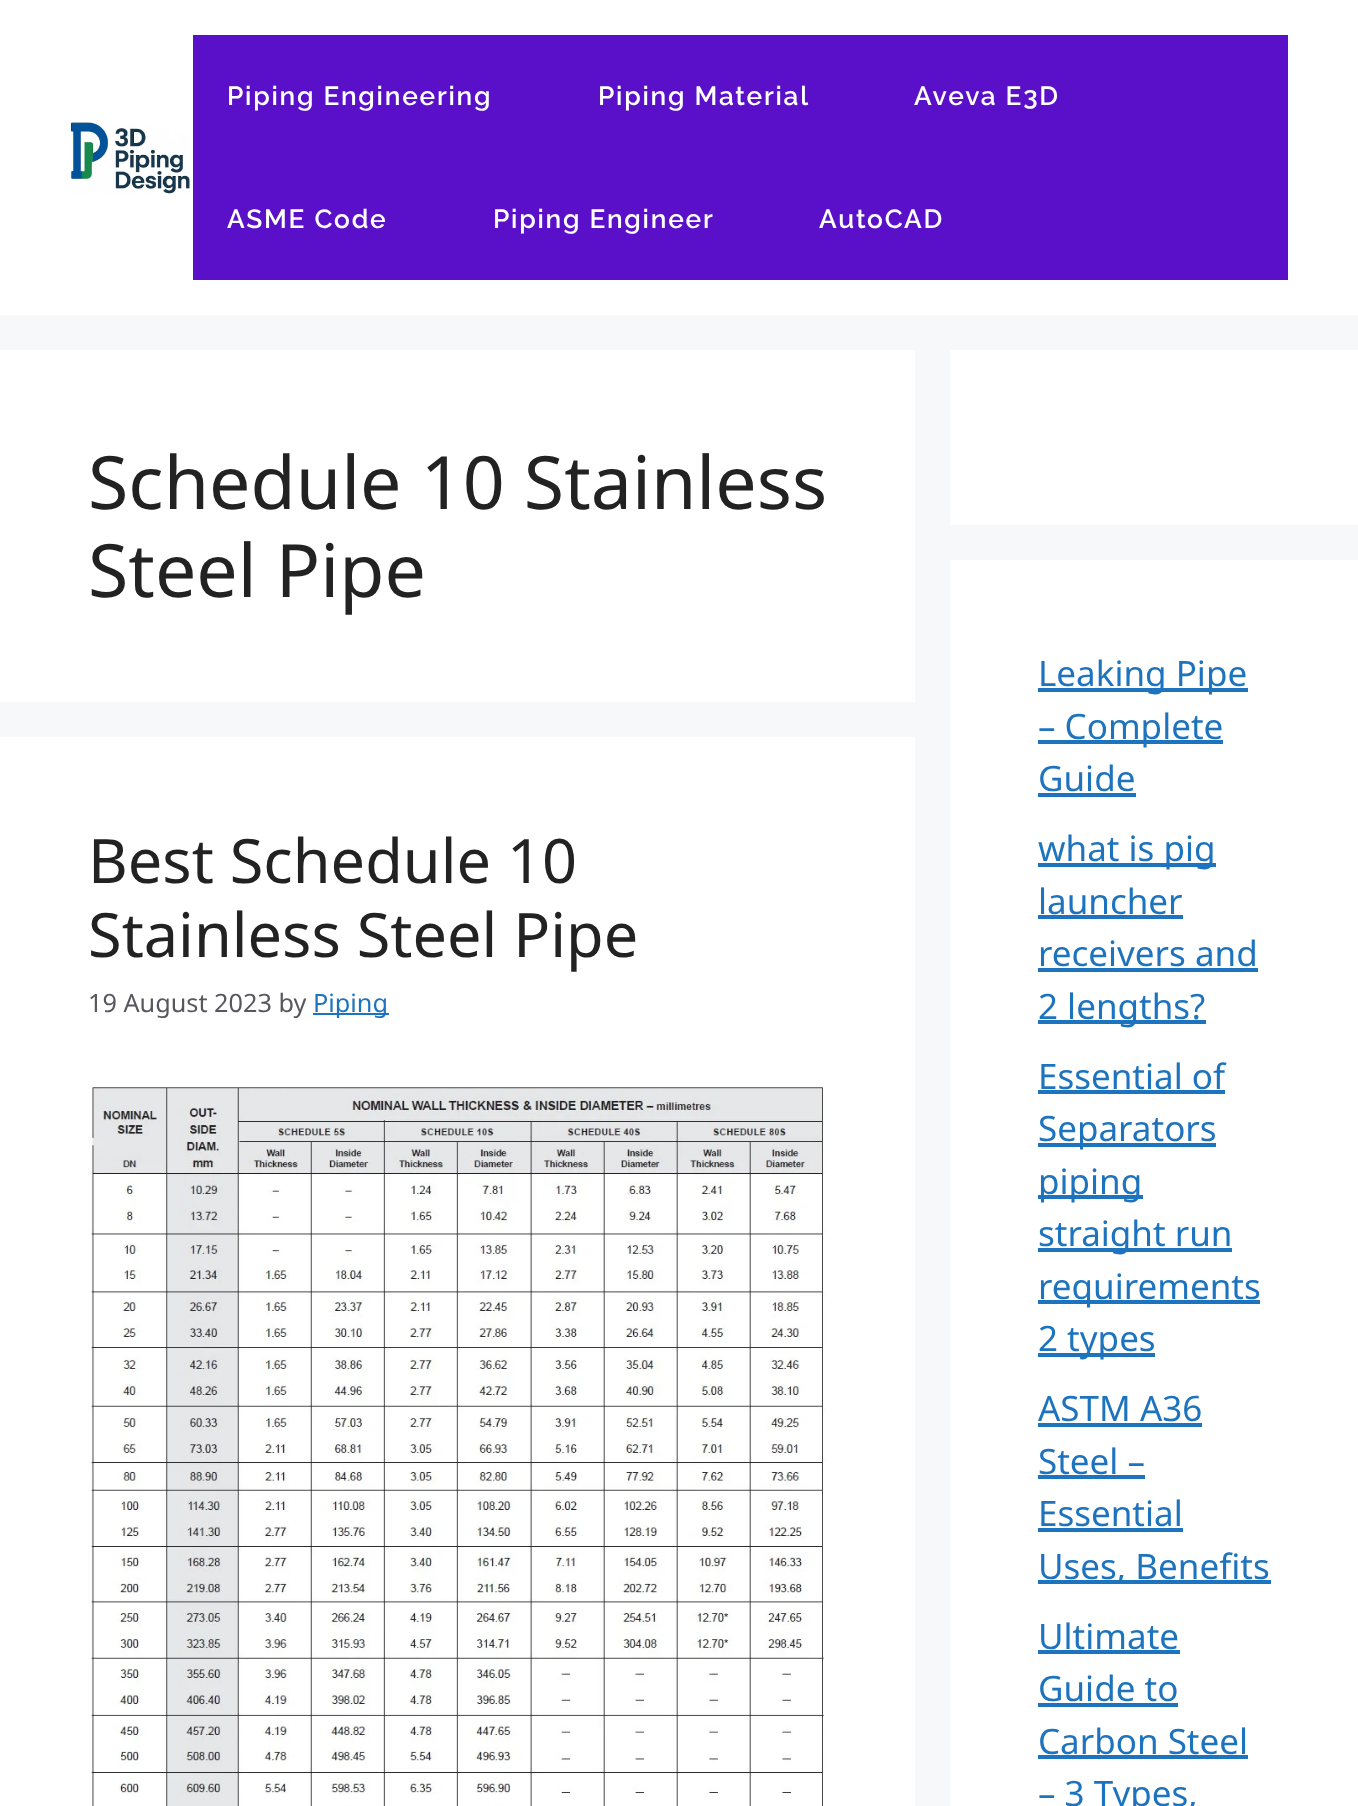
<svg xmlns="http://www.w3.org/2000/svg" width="1358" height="1806">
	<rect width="100%" height="100%" fill="#F7F8F9" />
	<rect x="0" y="0" width="1358" height="315" fill="#FFFFFF" />
	<image x="70" y="121" width="121" height="73" href="assets/img1.png" />
	<rect x="193" y="35" width="1095" height="245" fill="#5A0FC8" />
	<g font-family="Raleway" font-size="26.25" font-weight="600" letter-spacing="1.75" fill="#FFFFFF">
		<text x="227" y="105">Piping Engineering</text>
		<text x="598" y="105">Piping Material</text>
		<text x="914" y="105">Aveva E3D</text>
		<text x="227" y="228">ASME Code</text>
		<text x="493" y="228">Piping Engineer</text>
		<text x="819" y="228">AutoCAD</text>
	</g>
	<rect x="0" y="350" width="915" height="352" fill="#FFFFFF" />
	<g font-family="Noto Sans" font-size="73.5" fill="#222222">
		<text x="88" y="509">Schedule 10 Stainless</text>
		<text x="88" y="597">Steel Pipe</text>
	</g>
	<rect x="0" y="737" width="915" height="1069" fill="#FFFFFF" />
	<g font-family="Noto Sans" font-size="61.25" fill="#222222">
		<text x="88" y="883">Best Schedule 10</text>
		<text x="88" y="957">Stainless Steel Pipe</text>
	</g>
	<text x="88" y="1012" font-family="Noto Sans" font-size="25.25" fill="#575760">19 August 2023 by</text>
	<rect x="313" y="1013" width="76" height="2" fill="#1E73BE" />
	<text x="313" y="1012" font-family="Noto Sans" font-size="25.25" fill="#1E73BE">Piping</text>
	<image x="88" y="1085" width="738" height="721" href="assets/img2.png" />
	<rect x="950" y="350" width="408" height="175" fill="#FFFFFF" />
	<rect x="950" y="560" width="408" height="1246" fill="#FFFFFF" />
	<rect x="1038" y="688" width="210" height="4" fill="#1E73BE" />
	<text x="1038" y="686" font-family="Noto Sans" font-size="35" fill="#1E73BE">Leaking Pipe</text>
	<rect x="1038" y="740" width="185" height="4" fill="#1E73BE" />
	<g font-family="Noto Sans" font-size="35" fill="#1E73BE">
		<text x="1038" y="739">– Complete</text>
		<text x="1038" y="791">Guide</text>
	</g>
	<rect x="1038" y="793" width="98" height="4" fill="#1E73BE" />
	<rect x="1038" y="863" width="178" height="4" fill="#1E73BE" />
	<g font-family="Noto Sans" font-size="35" fill="#1E73BE">
		<text x="1038" y="861">what is pig</text>
		<text x="1038" y="914">launcher</text>
	</g>
	<rect x="1038" y="915" width="145" height="4" fill="#1E73BE" />
	<text x="1038" y="966" font-family="Noto Sans" font-size="35" fill="#1E73BE">receivers and</text>
	<rect x="1038" y="968" width="220" height="4" fill="#1E73BE" />
	<rect x="1038" y="1020" width="168" height="4" fill="#1E73BE" />
	<g font-family="Noto Sans" font-size="35" fill="#1E73BE">
		<text x="1038" y="1019">2 lengths?</text>
		<text x="1038" y="1089">Essential of</text>
	</g>
	<rect x="1038" y="1090" width="187" height="4" fill="#1E73BE" />
	<rect x="1038" y="1143" width="178" height="4" fill="#1E73BE" />
	<text x="1038" y="1141" font-family="Noto Sans" font-size="35" fill="#1E73BE">Separators</text>
	<rect x="1038" y="1195" width="105" height="4" fill="#1E73BE" />
	<text x="1038" y="1194" font-family="Noto Sans" font-size="35" fill="#1E73BE">piping</text>
	<rect x="1038" y="1248" width="194" height="4" fill="#1E73BE" />
	<text x="1038" y="1246" font-family="Noto Sans" font-size="35" fill="#1E73BE">straight run</text>
	<rect x="1038" y="1300" width="222" height="4" fill="#1E73BE" />
	<text x="1038" y="1299" font-family="Noto Sans" font-size="35" fill="#1E73BE">requirements</text>
	<rect x="1038" y="1353" width="117" height="4" fill="#1E73BE" />
	<g font-family="Noto Sans" font-size="35" fill="#1E73BE">
		<text x="1038" y="1351">2 types</text>
		<text x="1038" y="1421">ASTM A36</text>
	</g>
	<rect x="1038" y="1423" width="164" height="4" fill="#1E73BE" />
	<text x="1038" y="1474" font-family="Noto Sans" font-size="35" fill="#1E73BE">Steel –</text>
	<rect x="1038" y="1475" width="107" height="4" fill="#1E73BE" />
	<text x="1038" y="1526" font-family="Noto Sans" font-size="35" fill="#1E73BE">Essential</text>
	<rect x="1038" y="1528" width="145" height="4" fill="#1E73BE" />
	<rect x="1038" y="1580" width="233" height="4" fill="#1E73BE" />
	<g font-family="Noto Sans" font-size="35" fill="#1E73BE">
		<text x="1038" y="1579">Uses, Benefits</text>
		<text x="1038" y="1649">Ultimate</text>
	</g>
	<rect x="1038" y="1650" width="142" height="4" fill="#1E73BE" />
	<text x="1038" y="1701" font-family="Noto Sans" font-size="35" fill="#1E73BE">Guide to</text>
	<rect x="1038" y="1703" width="140" height="4" fill="#1E73BE" />
	<text x="1038" y="1754" font-family="Noto Sans" font-size="35" fill="#1E73BE">Carbon Steel</text>
	<rect x="1038" y="1755" width="210" height="4" fill="#1E73BE" />
	<text x="1038" y="1806" font-family="Noto Sans" font-size="35" fill="#1E73BE">– 3 Types,</text>
</svg>
